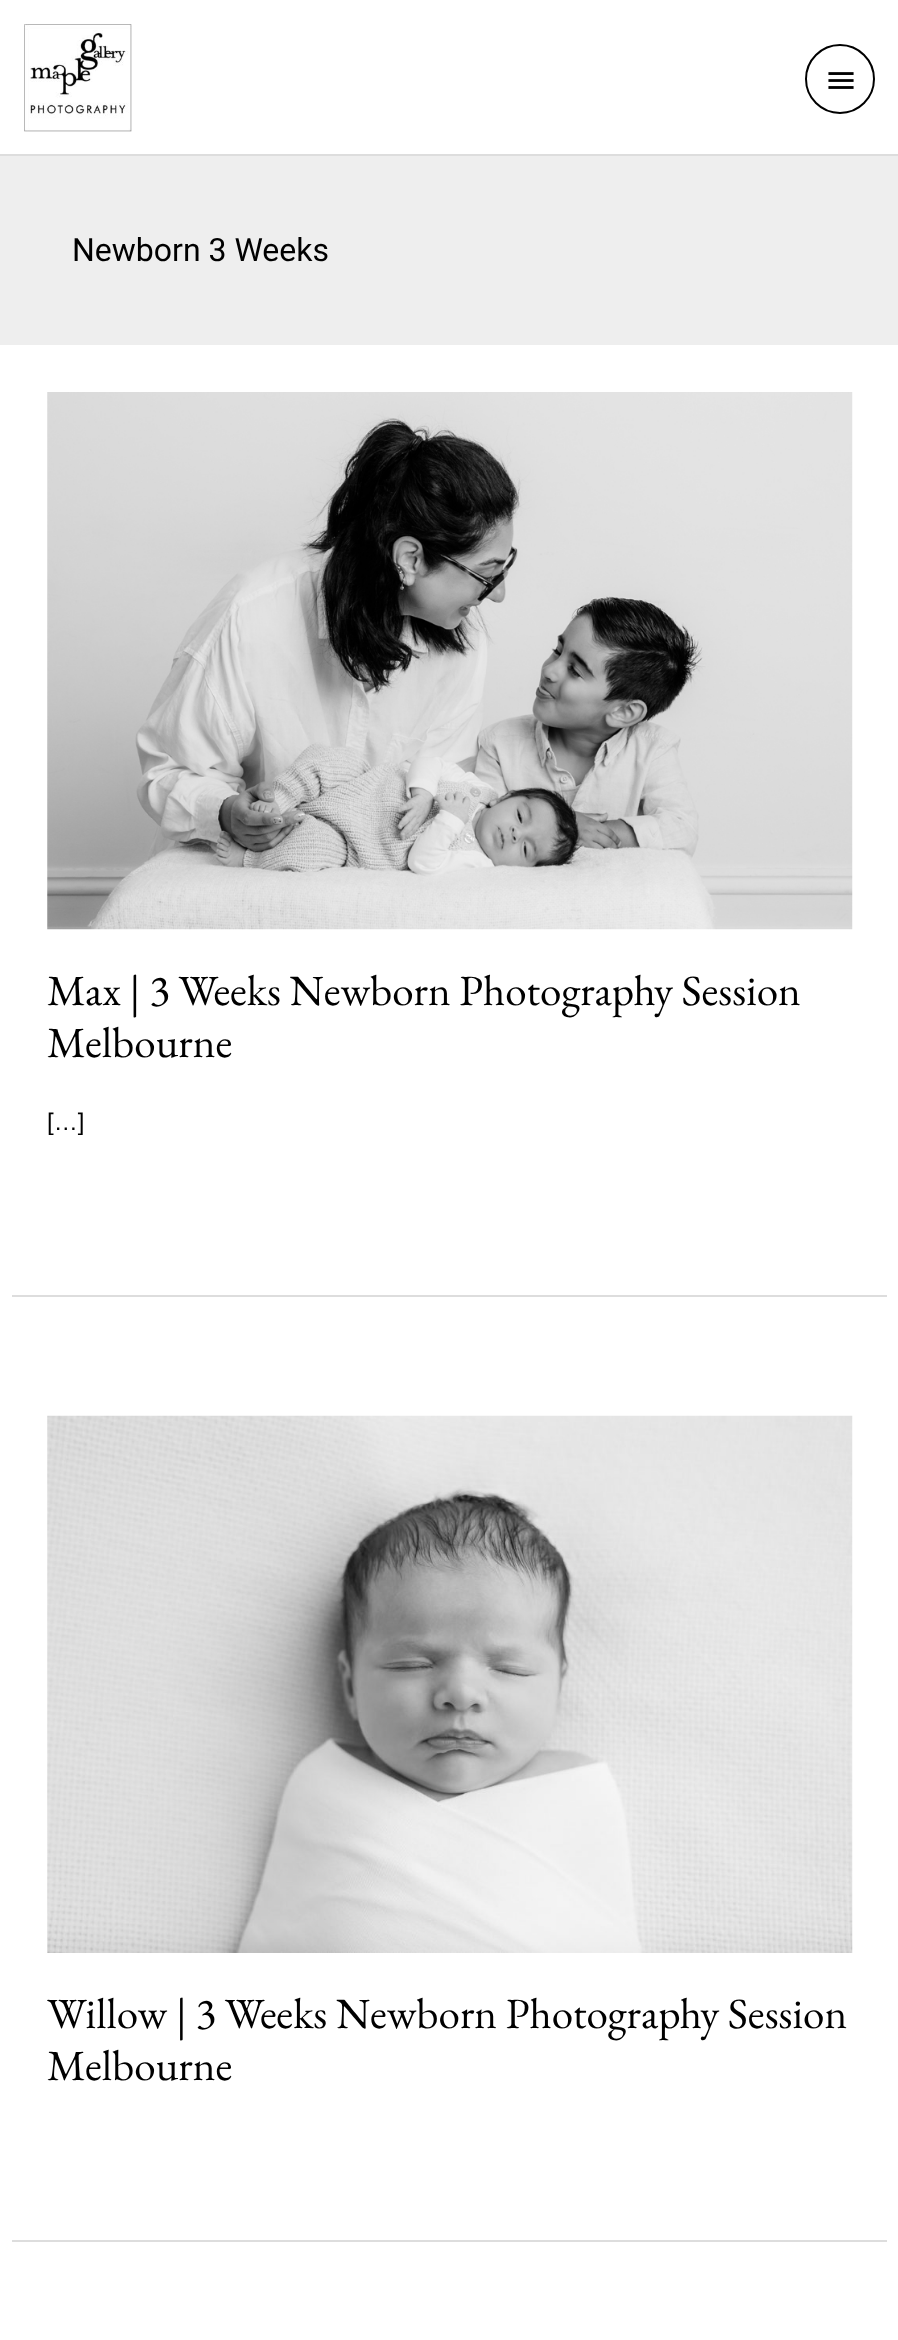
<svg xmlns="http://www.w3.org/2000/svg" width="898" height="2340">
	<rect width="100%" height="100%" fill="#FFFFFF" />
	<rect x="0" y="154" width="898" height="2" fill="#DDDDDD" />
	<image x="24" y="24" width="108" height="108" href="assets/img1.png" />
	<circle cx="840" cy="79" r="34" fill="none" stroke="#000000" stroke-width="2" />
	<image x="828" y="72" width="26" height="17" href="assets/img2.png" />
	<rect x="0" y="156" width="898" height="189" fill="#EEEEEE" />
	<text x="72" y="261" font-family="Roboto" font-size="32" fill="#000000">Newborn 3 Weeks</text>
	<rect x="12" y="1295" width="875" height="2" fill="#DDDDDD" />
	<image x="47" y="392" width="806" height="538" href="assets/img3.png" />
	<g font-family="EB Garamond" font-size="43.1" fill="#000000">
		<text x="47" y="1005">Max | 3 Weeks Newborn Photography Session</text>
		<text x="47" y="1057">Melbourne</text>
	</g>
	<text x="47" y="1130" font-family="Liberation Sans" font-size="24" fill="#000000">[…]</text>
	<rect x="12" y="2240" width="875" height="2" fill="#DDDDDD" />
	<image x="47" y="1415" width="806" height="538" href="assets/img4.png" />
	<g font-family="EB Garamond" font-size="43.1" fill="#000000">
		<text x="47" y="2028">Willow | 3 Weeks Newborn Photography Session</text>
		<text x="47" y="2080">Melbourne</text>
	</g>
</svg>
